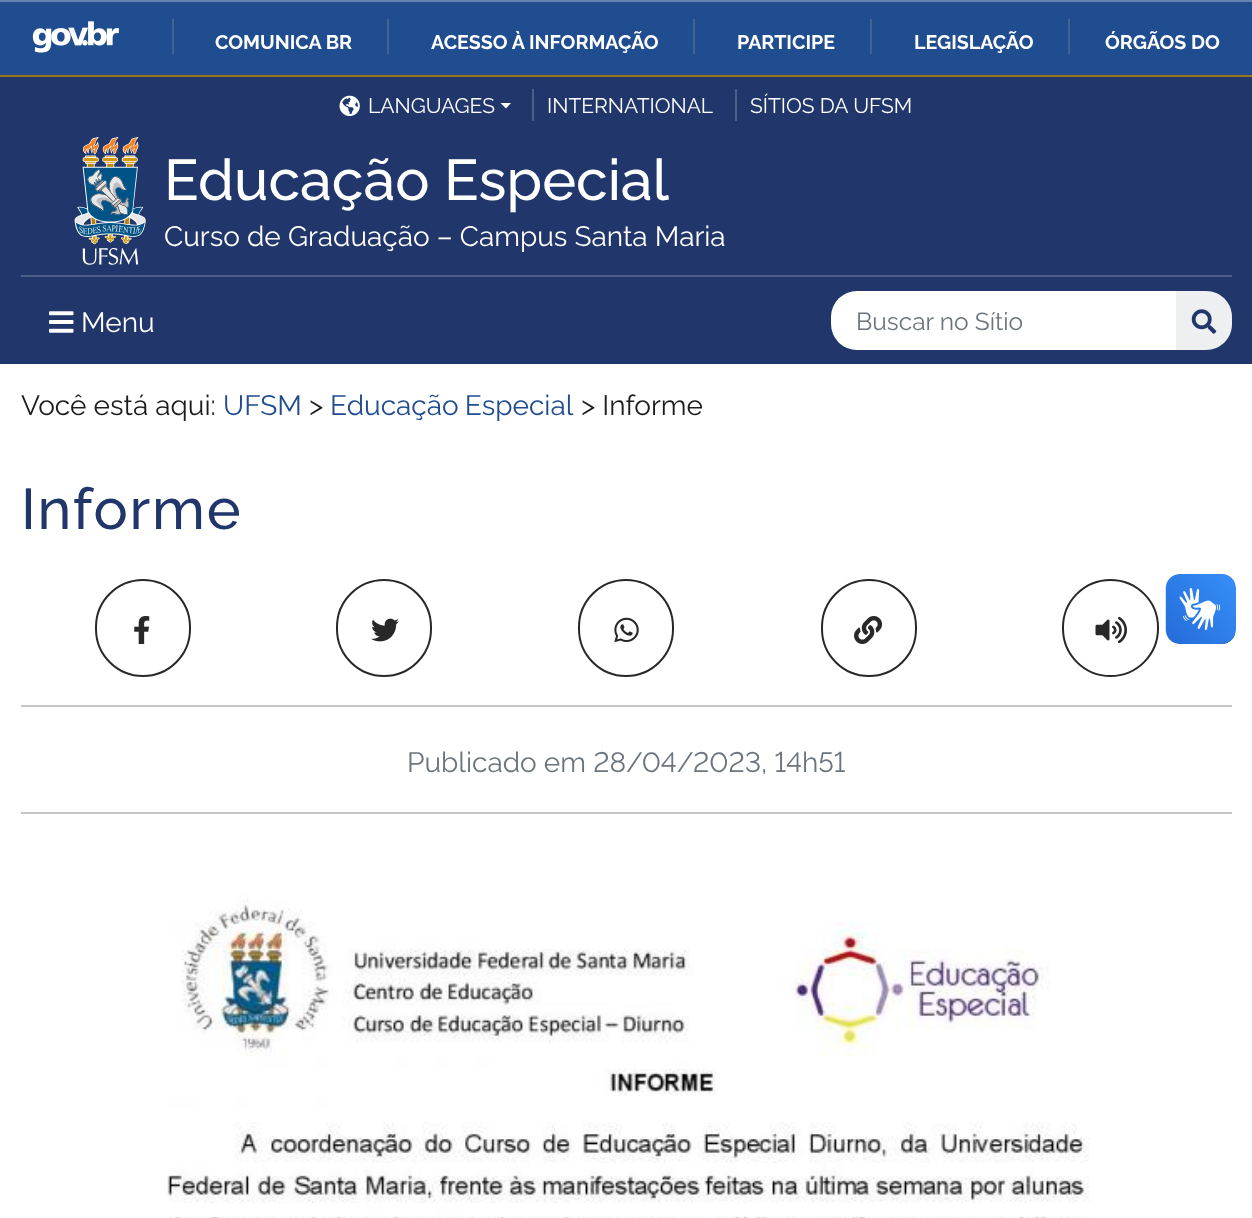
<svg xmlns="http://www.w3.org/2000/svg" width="1252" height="1218">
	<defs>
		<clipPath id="clip1"><rect x="831" y="291" width="401" height="59" rx="26" /></clipPath>
	</defs>
	<rect width="100%" height="100%" fill="#FFFFFF" />
	<rect x="0" y="2" width="1252" height="73" fill="#204C90" />
	<rect x="0" y="0" width="1252" height="2" fill="#6382B1" />
	<image x="32" y="21" width="87" height="32" href="assets/img1.png" />
	<rect x="172" y="19" width="2" height="35" fill="#446392" />
	<text x="215" y="49" font-family="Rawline" font-size="19.6" font-weight="700" fill="#FFFFFF">COMUNICA BR</text>
	<rect x="387" y="19" width="2" height="35" fill="#446392" />
	<text x="431" y="49" font-family="Rawline" font-size="19.6" font-weight="700" fill="#FFFFFF">ACESSO À INFORMAÇÃO</text>
	<rect x="693" y="19" width="2" height="35" fill="#446392" />
	<text x="737" y="49" font-family="Rawline" font-size="19.6" font-weight="700" fill="#FFFFFF">PARTICIPE</text>
	<rect x="870" y="19" width="2" height="35" fill="#446392" />
	<text x="914" y="49" font-family="Rawline" font-size="19.6" font-weight="700" fill="#FFFFFF">LEGISLAÇÃO</text>
	<rect x="1068" y="19" width="2" height="35" fill="#446392" />
	<text x="1105" y="49" font-family="Rawline" font-size="19.6" font-weight="700" fill="#FFFFFF">ÓRGÃOS DO</text>
	<rect x="0" y="77" width="1252" height="287" fill="#21376B" />
	<rect x="0" y="75" width="1252" height="2" fill="#997520" />
	<image x="339" y="95" width="21" height="21" href="assets/img2.png" />
	<text x="368" y="113" font-family="Rawline" font-size="21" fill="#FFFFFF">LANGUAGES</text>
	<path d="M500.5 103H511L506 108.5Z" fill="#FFFFFF" />
	<rect x="532" y="89" width="2" height="32" fill="#4D5F89" />
	<text x="547" y="113" font-family="Rawline" font-size="21" fill="#FFFFFF">INTERNATIONAL</text>
	<rect x="735" y="89" width="2" height="32" fill="#4D5F89" />
	<text x="750" y="113" font-family="Rawline" font-size="21" fill="#FFFFFF">SÍTIOS DA UFSM</text>
	<rect x="21" y="275" width="1211" height="2" fill="#4D5F89" />
	<image x="74" y="137" width="72" height="128" href="assets/img3.png" />
	<text x="164" y="200" font-family="Rawline" font-size="57.25" font-weight="500" fill="#FFFFFF">Educação Especial</text>
	<text x="164" y="246" font-family="Rawline" font-size="28" fill="#FFFFFF">Curso de Graduação – Campus Santa Maria</text>
	<image x="49" y="311" width="25" height="22" href="assets/img4.png" />
	<text x="81" y="332" font-family="Rawline" font-size="28" fill="#FFFFFF">Menu</text>
	<g clip-path="url(#clip1)">
		<path d="M837 291H1178V350H837C833 350 830 347 830 343V298C830 294 833 291 837 291Z" fill="#FFFFFF" />
	</g>
	<text x="856" y="330" font-family="Rawline" font-size="24.5" fill="#6C757D">Buscar no Sítio</text>
	<path d="M1176 291H1206C1220.5 291 1232 302.5 1232 317V324C1232 338.5 1220.5 350 1206 350H1176Z" fill="#EEEFF1" />
	<image x="1191" y="309" width="26" height="25" href="assets/img5.png" />
	<text x="21" y="415" font-family="Rawline" font-size="28" fill="#1C1C1C">Você está aqui:</text>
	<text x="223" y="415" font-family="Rawline" font-size="28" fill="#204C90">UFSM</text>
	<text x="309" y="415" font-family="Rawline" font-size="28" fill="#1C1C1C">&gt;</text>
	<text x="330" y="415" word-spacing="-1" font-family="Rawline" font-size="28" fill="#204C90">Educação Especial</text>
	<text x="581" y="415" font-family="Rawline" font-size="28" fill="#1C1C1C">&gt; Informe</text>
	<text x="21" y="529" font-family="Rawline" font-size="57.25" font-weight="500" letter-spacing="1.75" fill="#21376B">Informe</text>
	<rect x="96" y="580" width="94" height="96" rx="47" fill="none" stroke="#282828" stroke-width="2" />
	<image x="134" y="616" width="16" height="28" href="assets/img6.png" />
	<rect x="337" y="580" width="94" height="96" rx="47" fill="none" stroke="#282828" stroke-width="2" />
	<image x="371" y="618" width="28" height="24" href="assets/img7.png" />
	<rect x="579" y="580" width="94" height="96" rx="47" fill="none" stroke="#282828" stroke-width="2" />
	<image x="614" y="617" width="25" height="26" href="assets/img8.png" />
	<rect x="822" y="580" width="94" height="96" rx="47" fill="none" stroke="#282828" stroke-width="2" />
	<image x="854" y="616" width="29" height="28" href="assets/img9.png" />
	<rect x="1063" y="580" width="95" height="96" rx="47.5" fill="none" stroke="#282828" stroke-width="2" />
	<image x="1095" y="616" width="32" height="28" href="assets/img10.png" />
	<rect x="21" y="705" width="1211" height="2" fill="#C6C6C6" />
	<text x="407" y="772" font-family="Rawline" font-size="28" fill="#6C757D">Publicado em 28/04/2023, 14h51</text>
	<rect x="21" y="812" width="1211" height="2" fill="#C6C6C6" />
	<image x="167" y="895" width="923" height="323" href="assets/img11.png" />
	<image x="1165" y="574" width="71" height="70" href="assets/img12.png" />
	<image x="1166" y="574" width="70" height="70" href="assets/img13.png" />
</svg>
